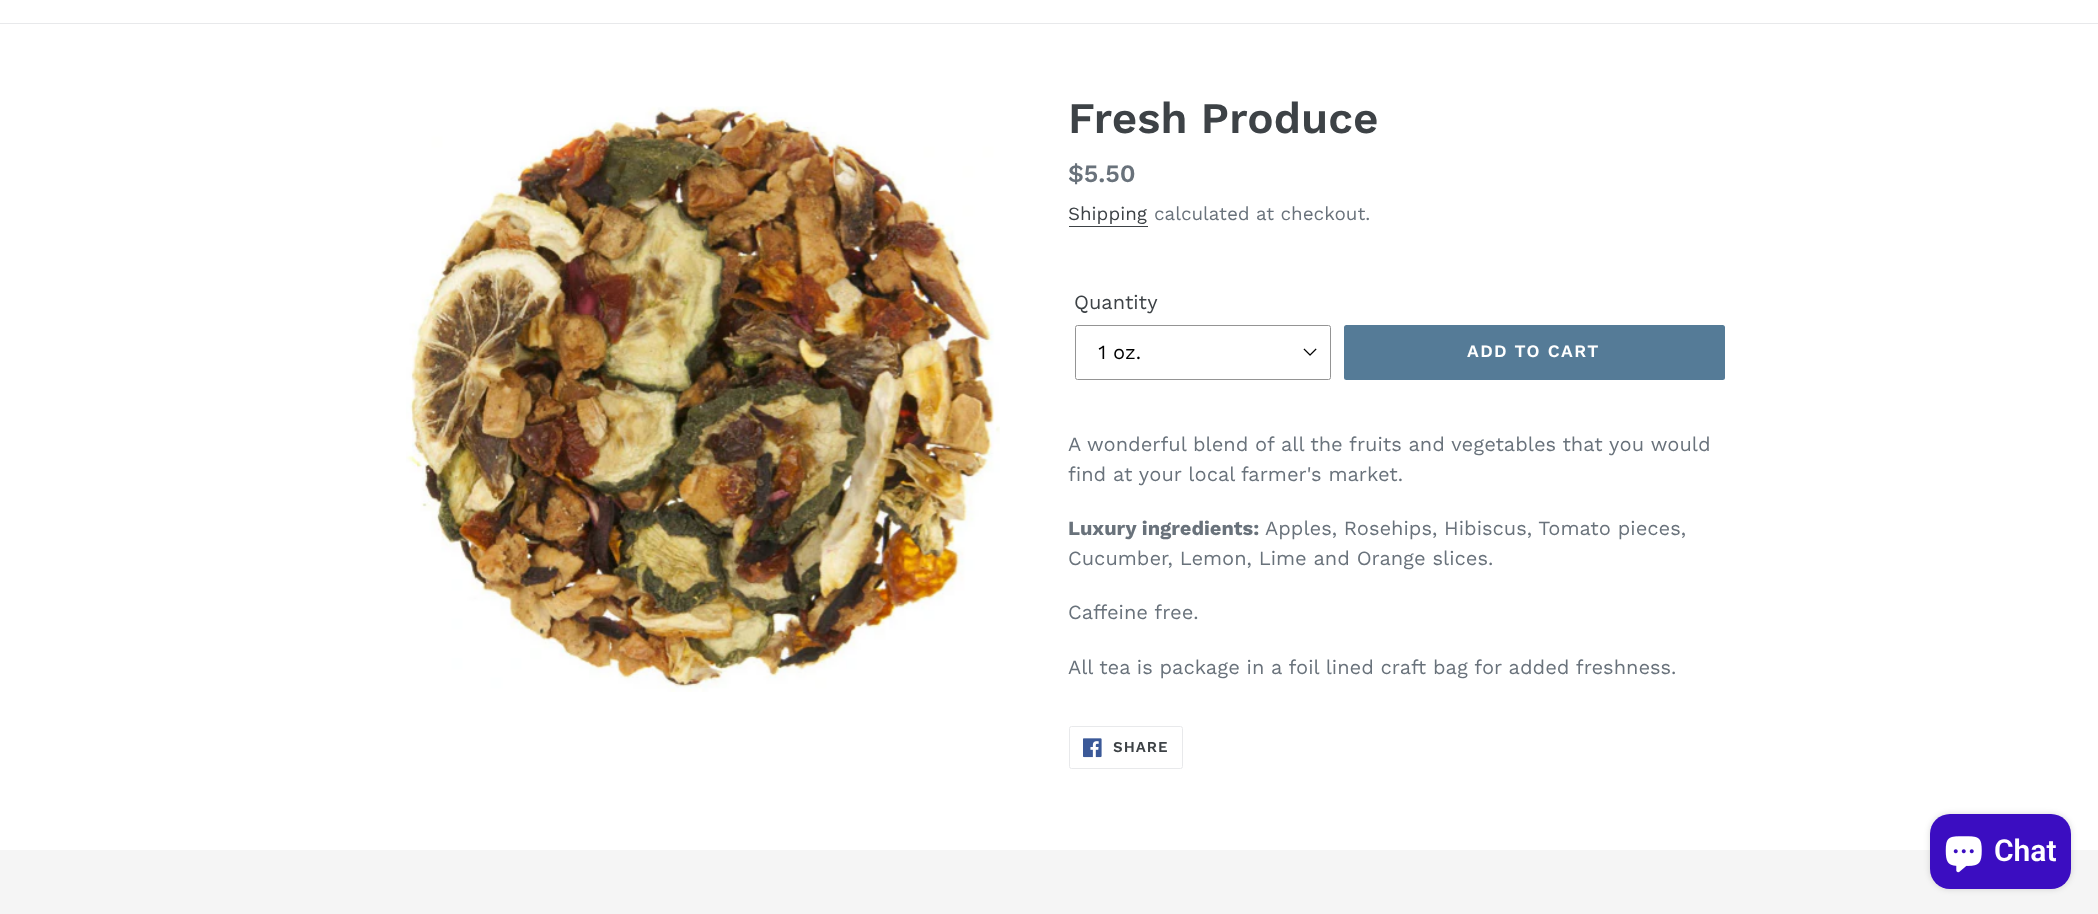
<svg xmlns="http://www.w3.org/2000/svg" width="2098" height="914">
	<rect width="100%" height="100%" fill="#FFFFFF" />
	<rect x="0" y="23" width="2098" height="1" fill="#E8E9EB" />
	<image x="406" y="106" width="594" height="586" href="assets/img1.png" />
	<text x="1068" y="133" font-family="Work Sans" font-size="43.75" font-weight="600" fill="#3D4246">Fresh Produce</text>
	<text x="1068" y="182" font-family="Work Sans" font-size="25" font-weight="600" fill="#69727B">$5.50</text>
	<text x="1068" y="220" font-family="Work Sans" font-size="18.75" fill="#3D4246">Shipping</text>
	<rect x="1069" y="226" width="79" height="1" fill="#3D4246" />
	<text x="1154" y="220" font-family="Work Sans" font-size="18.75" fill="#69727B">calculated at checkout.</text>
	<text x="1074" y="309" font-family="Work Sans" font-size="20" fill="#3D4246">Quantity</text>
	<image x="1303" y="348" width="14" height="8" href="assets/img2.png" />
	<rect x="1075.5" y="325.5" width="255" height="54" rx="2" fill="none" stroke="#949494" />
	<text x="1098" y="359" font-family="Work Sans" font-size="20" fill="#000000">1 oz.</text>
	<rect x="1344" y="325" width="381" height="55" rx="2.5" fill="#557B97" />
	<text x="1467" y="357" font-family="Work Sans" font-size="17.5" font-weight="600" letter-spacing="1.4" fill="#FFFFFF">ADD TO CART</text>
	<g font-family="Work Sans" font-size="20" fill="#69727B">
		<text x="1068" y="451">A wonderful blend of all the fruits and vegetables that you would</text>
		<text x="1068" y="481">find at your local farmer's market.</text>
	</g>
	<text x="1068" y="535" font-family="Work Sans" font-size="20" font-weight="700" fill="#69727B">Luxury ingredients:</text>
	<g font-family="Work Sans" font-size="20" fill="#69727B">
		<text x="1265" y="535">Apples, Rosehips, Hibiscus, Tomato pieces,</text>
		<text x="1068" y="565">Cucumber, Lemon, Lime and Orange slices.</text>
		<text x="1068" y="619">Caffeine free.</text>
		<text x="1068" y="674">All tea is package in a foil lined craft bag for added freshness.</text>
	</g>
	<rect x="1069.5" y="726.5" width="113" height="42" rx="2" fill="none" stroke="#E8E9EB" />
	<image x="1083" y="738" width="19" height="20" href="assets/img3.png" />
	<text x="1113" y="752" font-family="Work Sans" font-size="15" font-weight="600" letter-spacing="1" fill="#3D4246">SHARE</text>
	<rect x="0" y="850" width="2098" height="64" fill="#F5F5F5" />
	<rect x="1930" y="814" width="141" height="75" rx="20" fill="#000000" fill-opacity="0.15" filter="blur(3px)" />
	<rect x="1930" y="814" width="141" height="75" rx="20" fill="#3B0DC1" />
	<image x="1945" y="836" width="37" height="37" href="assets/img4.png" />
	<text x="1994" y="861" font-family="Roboto" font-size="30" font-weight="600" fill="#FFFFFF">Chat</text>
</svg>
